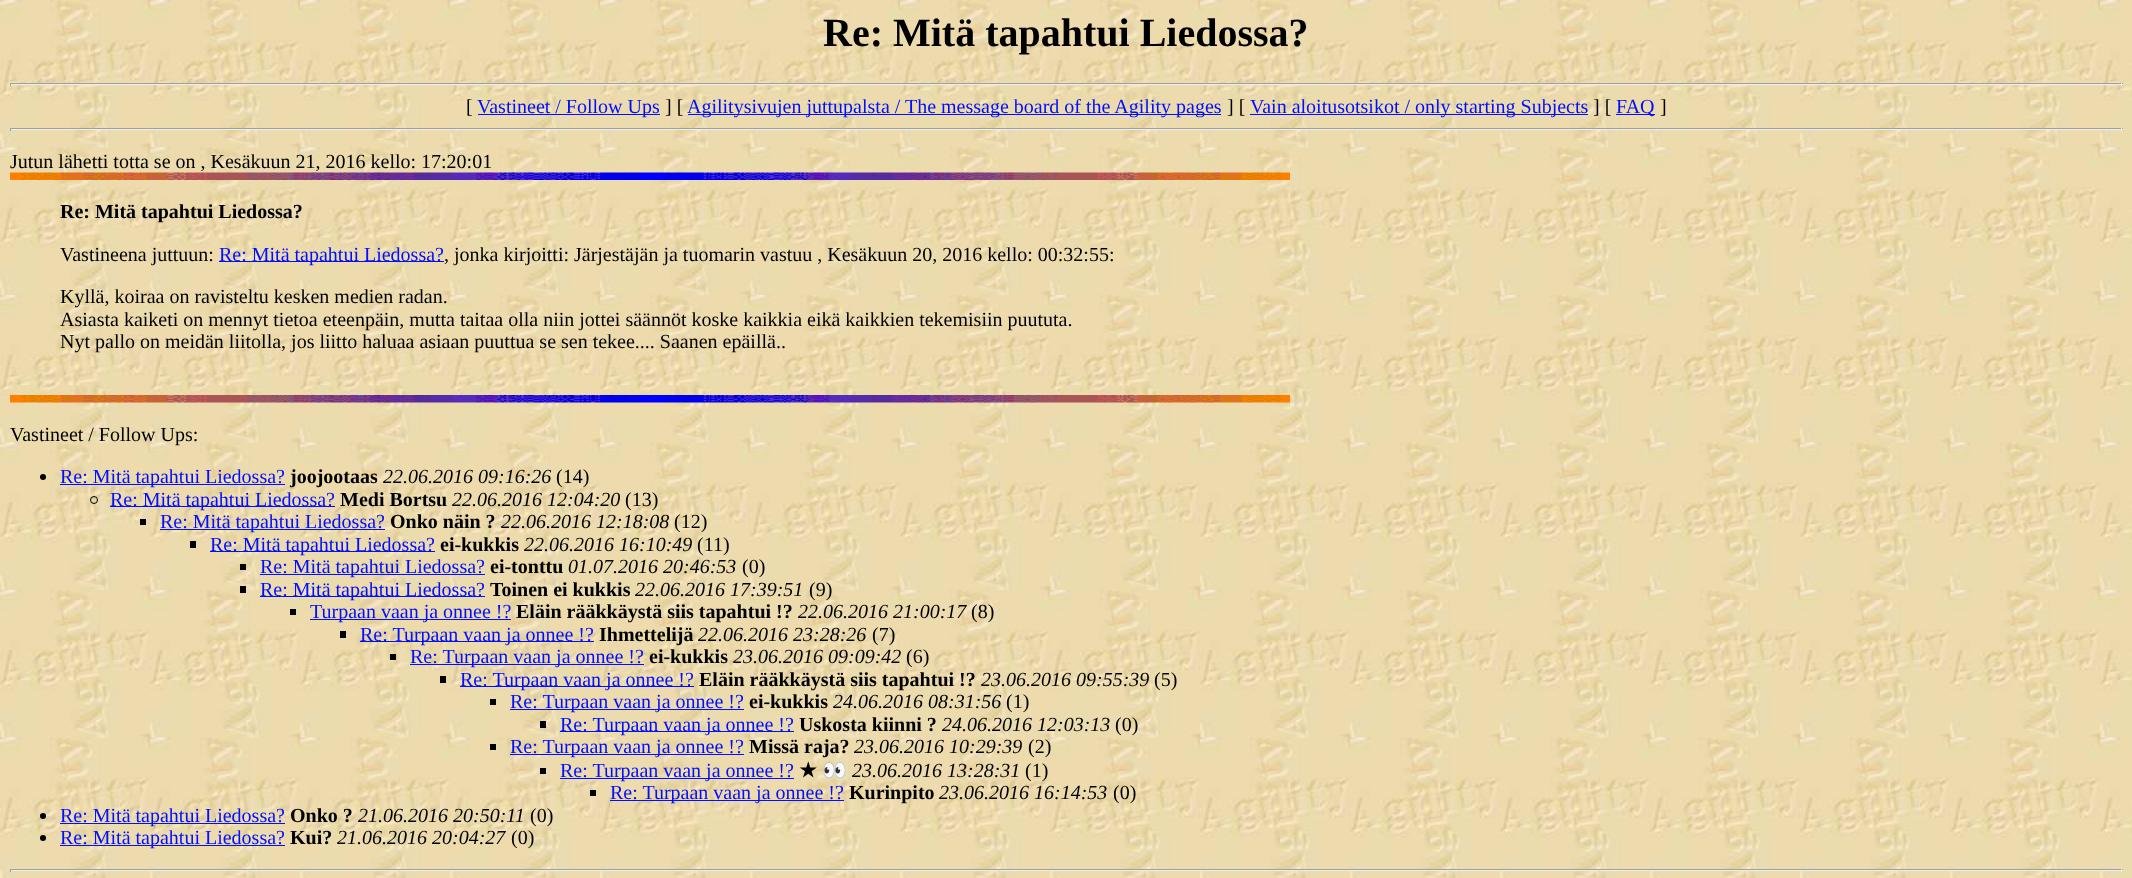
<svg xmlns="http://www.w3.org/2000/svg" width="2132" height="878">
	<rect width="100%" height="100%" fill="#FFFFFF" />
	<image x="0" y="0" width="2132" height="878" href="assets/img1.png" />
	<text x="823" y="46" font-family="Liberation Serif" font-size="40" font-weight="700" fill="#000000">Re: Mitä tapahtui Liedossa?</text>
	<rect x="10" y="83" width="2113" height="1" fill="#9F9F9F" />
	<rect x="2121" y="83" width="1" height="3" fill="#EEEEEE" />
	<rect x="10" y="84" width="2113" height="1" fill="#EEEEEE" />
	<rect x="10" y="83" width="1" height="3" fill="#9F9F9F" />
	<text x="466" y="113" font-family="Liberation Serif" font-size="20" fill="#000000">[</text>
	<rect x="478" y="114" width="182" height="1" fill="#000FFF" />
	<text x="477" y="113" font-family="Liberation Serif" font-size="20" fill="#000FFF">Vastineet / Follow Ups</text>
	<text x="665" y="113" font-family="Liberation Serif" font-size="20" fill="#000000">] [</text>
	<rect x="688" y="114" width="533" height="1" fill="#000FFF" />
	<text x="687" y="113" font-family="Liberation Serif" font-size="20" fill="#000FFF">Agilitysivujen juttupalsta / The message board of the Agility pages</text>
	<text x="1227" y="113" font-family="Liberation Serif" font-size="20" fill="#000000">] [</text>
	<rect x="1250" y="114" width="338" height="1" fill="#000FFF" />
	<text x="1250" y="113" font-family="Liberation Serif" font-size="20" fill="#000FFF">Vain aloitusotsikot / only starting Subjects</text>
	<text x="1593" y="113" font-family="Liberation Serif" font-size="20" fill="#000000">] [</text>
	<rect x="1616" y="114" width="39" height="1" fill="#000FFF" />
	<text x="1616" y="113" font-family="Liberation Serif" font-size="20" fill="#000FFF">FAQ</text>
	<text x="1660" y="113" font-family="Liberation Serif" font-size="20" fill="#000000">]</text>
	<rect x="10" y="128" width="2113" height="1" fill="#9F9F9F" />
	<rect x="2121" y="128" width="1" height="3" fill="#EEEEEE" />
	<rect x="10" y="129" width="2113" height="1" fill="#EEEEEE" />
	<rect x="10" y="128" width="1" height="3" fill="#9F9F9F" />
	<text x="10" y="168" font-family="Liberation Serif" font-size="20" fill="#000000">Jutun lähetti totta se on , Kesäkuun 21, 2016 kello: 17:20:01</text>
	<image x="10" y="172" width="1280" height="8" href="assets/img2.png" />
	<text x="60" y="218" font-family="Liberation Serif" font-size="20" font-weight="700" fill="#000000">Re: Mitä tapahtui Liedossa?</text>
	<text x="60" y="261" font-family="Liberation Serif" font-size="20" fill="#000000">Vastineena juttuun:</text>
	<rect x="219" y="261" width="225" height="1" fill="#000FFF" />
	<text x="219" y="261" font-family="Liberation Serif" font-size="20" fill="#000FFF">Re: Mitä tapahtui Liedossa?</text>
	<g font-family="Liberation Serif" font-size="20" fill="#000000">
		<text x="444" y="261">, jonka kirjoitti: Järjestäjän ja tuomarin vastuu , Kesäkuun 20, 2016 kello: 00:32:55:</text>
		<text x="60" y="303">Kyllä, koiraa on ravisteltu kesken medien radan.</text>
		<text x="60" y="326">Asiasta kaiketi on mennyt tietoa eteenpäin, mutta taitaa olla niin jottei säännöt koske kaikkia eikä kaikkien tekemisiin puututa.</text>
		<text x="60" y="348">Nyt pallo on meidän liitolla, jos liitto haluaa asiaan puuttua se sen tekee.... Saanen epäillä..</text>
	</g>
	<image x="10" y="395" width="1280" height="8" href="assets/img3.png" />
	<text x="10" y="441" font-family="Liberation Serif" font-size="20" fill="#000000">Vastineet / Follow Ups:</text>
	<circle cx="43" cy="477" r="3" fill="#000000" />
	<rect x="60" y="484" width="225" height="1" fill="#000FFF" />
	<text x="60" y="483" font-family="Liberation Serif" font-size="20" fill="#000FFF">Re: Mitä tapahtui Liedossa?</text>
	<text x="290" y="483" font-family="Liberation Serif" font-size="20" font-weight="700" fill="#000000">joojootaas</text>
	<text x="383" y="483" font-family="Liberation Serif" font-size="20" font-style="italic" fill="#000000">22.06.2016 09:16:26</text>
	<text x="556" y="483" font-family="Liberation Serif" font-size="20" fill="#000000">(14)</text>
	<circle cx="94" cy="500" r="3.5" fill="none" stroke="#000000" />
	<rect x="110" y="506" width="225" height="1" fill="#000FFF" />
	<text x="110" y="506" font-family="Liberation Serif" font-size="20" fill="#000FFF">Re: Mitä tapahtui Liedossa?</text>
	<text x="340" y="506" font-family="Liberation Serif" font-size="20" font-weight="700" fill="#000000">Medi Bortsu</text>
	<text x="452" y="506" font-family="Liberation Serif" font-size="20" font-style="italic" fill="#000000">22.06.2016 12:04:20</text>
	<text x="625" y="506" font-family="Liberation Serif" font-size="20" fill="#000000">(13)</text>
	<rect x="140" y="519" width="6" height="6" fill="#000000" />
	<rect x="160" y="529" width="225" height="1" fill="#000FFF" />
	<text x="160" y="528" font-family="Liberation Serif" font-size="20" fill="#000FFF">Re: Mitä tapahtui Liedossa?</text>
	<text x="390" y="528" font-family="Liberation Serif" font-size="20" font-weight="700" fill="#000000">Onko näin ?</text>
	<text x="501" y="528" font-family="Liberation Serif" font-size="20" font-style="italic" fill="#000000">22.06.2016 12:18:08</text>
	<text x="674" y="528" font-family="Liberation Serif" font-size="20" fill="#000000">(12)</text>
	<rect x="190" y="541" width="6" height="7" fill="#000000" />
	<rect x="210" y="551" width="225" height="1" fill="#000FFF" />
	<text x="210" y="551" font-family="Liberation Serif" font-size="20" fill="#000FFF">Re: Mitä tapahtui Liedossa?</text>
	<text x="440" y="551" font-family="Liberation Serif" font-size="20" font-weight="700" fill="#000000">ei-kukkis</text>
	<text x="524" y="551" font-family="Liberation Serif" font-size="20" font-style="italic" fill="#000000">22.06.2016 16:10:49</text>
	<text x="697" y="551" font-family="Liberation Serif" font-size="20" fill="#000000">(11)</text>
	<rect x="240" y="564" width="6" height="6" fill="#000000" />
	<rect x="260" y="574" width="225" height="1" fill="#000FFF" />
	<text x="260" y="573" font-family="Liberation Serif" font-size="20" fill="#000FFF">Re: Mitä tapahtui Liedossa?</text>
	<text x="490" y="573" font-family="Liberation Serif" font-size="20" font-weight="700" fill="#000000">ei-tonttu</text>
	<text x="568" y="573" font-family="Liberation Serif" font-size="20" font-style="italic" fill="#000000">01.07.2016 20:46:53</text>
	<text x="742" y="573" font-family="Liberation Serif" font-size="20" fill="#000000">(0)</text>
	<rect x="240" y="586" width="6" height="7" fill="#000000" />
	<rect x="260" y="596" width="225" height="1" fill="#000FFF" />
	<text x="260" y="596" font-family="Liberation Serif" font-size="20" fill="#000FFF">Re: Mitä tapahtui Liedossa?</text>
	<text x="490" y="596" font-family="Liberation Serif" font-size="20" font-weight="700" fill="#000000">Toinen ei kukkis</text>
	<text x="635" y="596" font-family="Liberation Serif" font-size="20" font-style="italic" fill="#000000">22.06.2016 17:39:51</text>
	<text x="809" y="596" font-family="Liberation Serif" font-size="20" fill="#000000">(9)</text>
	<rect x="290" y="609" width="6" height="6" fill="#000000" />
	<rect x="310" y="619" width="201" height="1" fill="#000FFF" />
	<text x="310" y="618" font-family="Liberation Serif" font-size="20" fill="#000FFF">Turpaan vaan ja onnee !?</text>
	<text x="516" y="618" font-family="Liberation Serif" font-size="20" font-weight="700" fill="#000000">Eläin rääkkäystä siis tapahtui !?</text>
	<text x="798" y="618" font-family="Liberation Serif" font-size="20" font-style="italic" fill="#000000">22.06.2016 21:00:17</text>
	<text x="971" y="618" font-family="Liberation Serif" font-size="20" fill="#000000">(8)</text>
	<rect x="340" y="631" width="6" height="7" fill="#000000" />
	<rect x="360" y="641" width="234" height="1" fill="#000FFF" />
	<text x="360" y="641" font-family="Liberation Serif" font-size="20" fill="#000FFF">Re: Turpaan vaan ja onnee !?</text>
	<text x="599" y="641" font-family="Liberation Serif" font-size="20" font-weight="700" fill="#000000">Ihmettelijä</text>
	<text x="698" y="641" font-family="Liberation Serif" font-size="20" font-style="italic" fill="#000000">22.06.2016 23:28:26</text>
	<text x="872" y="641" font-family="Liberation Serif" font-size="20" fill="#000000">(7)</text>
	<rect x="390" y="654" width="6" height="6" fill="#000000" />
	<rect x="410" y="664" width="234" height="1" fill="#000FFF" />
	<text x="410" y="663" font-family="Liberation Serif" font-size="20" fill="#000FFF">Re: Turpaan vaan ja onnee !?</text>
	<text x="649" y="663" font-family="Liberation Serif" font-size="20" font-weight="700" fill="#000000">ei-kukkis</text>
	<text x="733" y="663" font-family="Liberation Serif" font-size="20" font-style="italic" fill="#000000">23.06.2016 09:09:42</text>
	<text x="906" y="663" font-family="Liberation Serif" font-size="20" fill="#000000">(6)</text>
	<rect x="440" y="676" width="6" height="7" fill="#000000" />
	<rect x="460" y="686" width="234" height="1" fill="#000FFF" />
	<text x="460" y="686" font-family="Liberation Serif" font-size="20" fill="#000FFF">Re: Turpaan vaan ja onnee !?</text>
	<text x="699" y="686" font-family="Liberation Serif" font-size="20" font-weight="700" fill="#000000">Eläin rääkkäystä siis tapahtui !?</text>
	<text x="981" y="686" font-family="Liberation Serif" font-size="20" font-style="italic" fill="#000000">23.06.2016 09:55:39</text>
	<text x="1154" y="686" font-family="Liberation Serif" font-size="20" fill="#000000">(5)</text>
	<rect x="490" y="699" width="6" height="6" fill="#000000" />
	<rect x="510" y="709" width="234" height="1" fill="#000FFF" />
	<text x="510" y="708" font-family="Liberation Serif" font-size="20" fill="#000FFF">Re: Turpaan vaan ja onnee !?</text>
	<text x="749" y="708" font-family="Liberation Serif" font-size="20" font-weight="700" fill="#000000">ei-kukkis</text>
	<text x="833" y="708" font-family="Liberation Serif" font-size="20" font-style="italic" fill="#000000">24.06.2016 08:31:56</text>
	<text x="1006" y="708" font-family="Liberation Serif" font-size="20" fill="#000000">(1)</text>
	<rect x="540" y="721" width="6" height="7" fill="#000000" />
	<rect x="560" y="731" width="234" height="1" fill="#000FFF" />
	<text x="560" y="731" font-family="Liberation Serif" font-size="20" fill="#000FFF">Re: Turpaan vaan ja onnee !?</text>
	<text x="799" y="731" font-family="Liberation Serif" font-size="20" font-weight="700" fill="#000000">Uskosta kiinni ?</text>
	<text x="942" y="731" font-family="Liberation Serif" font-size="20" font-style="italic" fill="#000000">24.06.2016 12:03:13</text>
	<text x="1115" y="731" font-family="Liberation Serif" font-size="20" fill="#000000">(0)</text>
	<rect x="490" y="744" width="6" height="6" fill="#000000" />
	<rect x="510" y="754" width="234" height="1" fill="#000FFF" />
	<text x="510" y="753" font-family="Liberation Serif" font-size="20" fill="#000FFF">Re: Turpaan vaan ja onnee !?</text>
	<text x="749" y="753" font-family="Liberation Serif" font-size="20" font-weight="700" fill="#000000">Missä raja?</text>
	<text x="854" y="753" font-family="Liberation Serif" font-size="20" font-style="italic" fill="#000000">23.06.2016 10:29:39</text>
	<text x="1028" y="753" font-family="Liberation Serif" font-size="20" fill="#000000">(2)</text>
	<rect x="540" y="768" width="6" height="6" fill="#000000" />
	<rect x="560" y="778" width="234" height="1" fill="#000FFF" />
	<text x="560" y="777" font-family="Liberation Serif" font-size="20" fill="#000FFF">Re: Turpaan vaan ja onnee !?</text>
	<text x="799" y="777" font-family="DejaVu Sans" font-size="20" font-weight="700" fill="#000000">★</text>
	<text x="822" y="777" font-family="Noto Color Emoji" font-size="20" font-weight="700" fill="#000000">👀</text>
	<text x="852" y="777" font-family="Liberation Serif" font-size="20" font-style="italic" fill="#000000">23.06.2016 13:28:31</text>
	<text x="1025" y="777" font-family="Liberation Serif" font-size="20" fill="#000000">(1)</text>
	<rect x="590" y="790" width="6" height="6" fill="#000000" />
	<rect x="610" y="800" width="234" height="1" fill="#000FFF" />
	<text x="610" y="799" font-family="Liberation Serif" font-size="20" fill="#000FFF">Re: Turpaan vaan ja onnee !?</text>
	<text x="849" y="799" font-family="Liberation Serif" font-size="20" font-weight="700" fill="#000000">Kurinpito</text>
	<text x="939" y="799" font-family="Liberation Serif" font-size="20" font-style="italic" fill="#000000">23.06.2016 16:14:53</text>
	<text x="1113" y="799" font-family="Liberation Serif" font-size="20" fill="#000000">(0)</text>
	<circle cx="43" cy="816" r="3" fill="#000000" />
	<rect x="60" y="823" width="225" height="1" fill="#000FFF" />
	<text x="60" y="822" font-family="Liberation Serif" font-size="20" fill="#000FFF">Re: Mitä tapahtui Liedossa?</text>
	<text x="290" y="822" font-family="Liberation Serif" font-size="20" font-weight="700" fill="#000000">Onko ?</text>
	<text x="358" y="822" font-family="Liberation Serif" font-size="20" font-style="italic" fill="#000000">21.06.2016 20:50:11</text>
	<text x="530" y="822" font-family="Liberation Serif" font-size="20" fill="#000000">(0)</text>
	<circle cx="43" cy="838" r="3" fill="#000000" />
	<rect x="60" y="845" width="225" height="1" fill="#000FFF" />
	<text x="60" y="844" font-family="Liberation Serif" font-size="20" fill="#000FFF">Re: Mitä tapahtui Liedossa?</text>
	<text x="290" y="844" font-family="Liberation Serif" font-size="20" font-weight="700" fill="#000000">Kui?</text>
	<text x="337" y="844" font-family="Liberation Serif" font-size="20" font-style="italic" fill="#000000">21.06.2016 20:04:27</text>
	<text x="511" y="844" font-family="Liberation Serif" font-size="20" fill="#000000">(0)</text>
	<rect x="10" y="869" width="2113" height="1" fill="#9F9F9F" />
	<rect x="2121" y="869" width="1" height="3" fill="#EEEEEE" />
	<rect x="10" y="870" width="2113" height="1" fill="#EEEEEE" />
	<rect x="10" y="869" width="1" height="3" fill="#9F9F9F" />
</svg>
